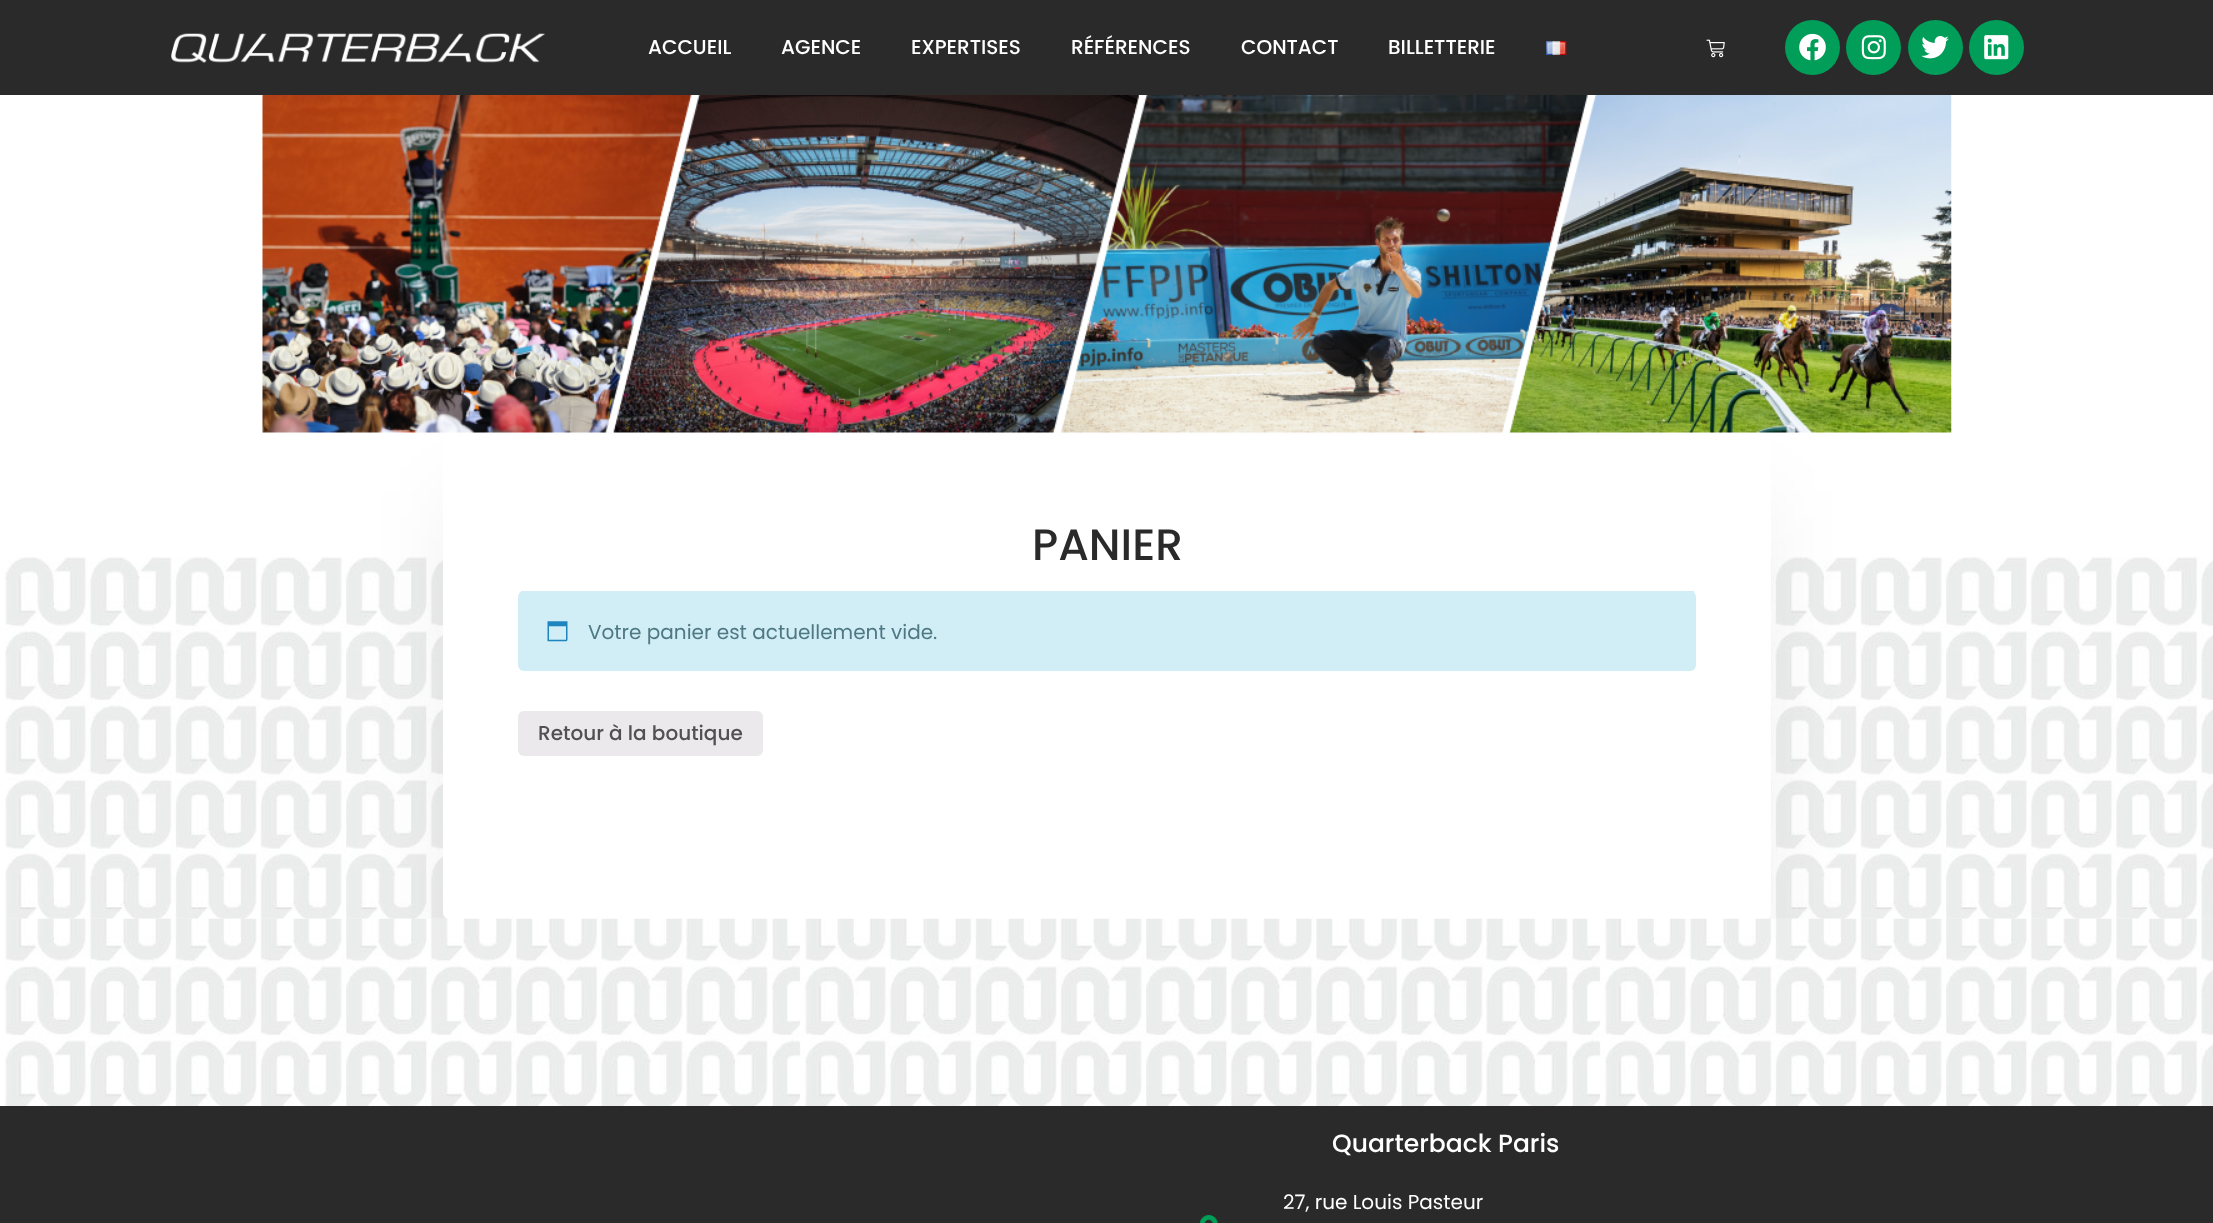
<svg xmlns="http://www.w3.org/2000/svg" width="2213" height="1223">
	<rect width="100%" height="100%" fill="#FFFFFF" />
	<rect x="0" y="0" width="2213" height="95" fill="#2A2A2A" />
	<image x="171" y="33" width="374" height="30" href="assets/img1.png" />
	<g font-family="Poppins" font-size="20" font-weight="500" fill="#FFFFFF">
		<text x="648" y="54">ACCUEIL</text>
		<text x="781" y="54">AGENCE</text>
		<text x="911" y="54">EXPERTISES</text>
		<text x="1071" y="54">RÉFÉRENCES</text>
		<text x="1241" y="54">CONTACT</text>
		<text x="1388" y="54">BILLETTERIE</text>
	</g>
	<image x="1546" y="41" width="21" height="14" href="assets/img2.png" />
	<image x="1706" y="39" width="19" height="19" href="assets/img3.png" />
	<circle cx="1812.5" cy="47.5" r="27.5" fill="#009E59" />
	<image x="1799" y="33" width="27" height="28" href="assets/img4.png" />
	<circle cx="1873.5" cy="47.5" r="27.5" fill="#009E59" />
	<image x="1861" y="35" width="25" height="25" href="assets/img5.png" />
	<circle cx="1935.5" cy="47.5" r="27.5" fill="#009E59" />
	<image x="1921" y="36" width="28" height="23" href="assets/img6.png" />
	<circle cx="1996.5" cy="47.5" r="27.5" fill="#009E59" />
	<image x="1984" y="35" width="25" height="25" href="assets/img7.png" />
	<image x="262" y="95" width="1690" height="338" href="assets/img8.png" />
	<image x="5" y="557" width="2208" height="362" href="assets/img9.png" />
	<rect x="443" y="491" width="1328" height="484" rx="6" fill="#000000" fill-opacity="0.05" filter="blur(37.5px)" />
	<rect x="443" y="435" width="1328" height="484" rx="6" fill="#FFFFFF" />
	<text x="1032" y="560" font-family="Poppins" font-size="44" font-weight="500" fill="#2A2A2A">PANIER</text>
	<rect x="518" y="591" width="1178" height="80" rx="6" fill="#D1EDF5" />
	<rect x="521" y="591" width="1173" height="2" fill="#D1EDF5" />
	<image x="547" y="621" width="21" height="21" href="assets/img10.png" />
	<text x="588" y="639" font-family="Poppins" font-size="20" fill="#4E7883">Votre panier est actuellement vide.</text>
	<rect x="518" y="711" width="245" height="45" rx="6" fill="#EBE9EB" />
	<text x="538" y="740" font-family="Poppins" font-size="20" font-weight="500" fill="#515151">Retour à la boutique</text>
	<image x="5" y="918" width="2208" height="188" href="assets/img11.png" />
	<rect x="0" y="1106" width="2213" height="117" fill="#2A2A2A" />
	<text x="1332" y="1152" font-family="Poppins" font-size="25" font-weight="500" fill="#FFFFFF">Quarterback Paris</text>
	<text x="1283" y="1209" font-family="Poppins" font-size="20" fill="#FFFFFF">27, rue Louis Pasteur</text>
	<image x="1199" y="1215" width="19" height="8" href="assets/img12.png" />
</svg>
